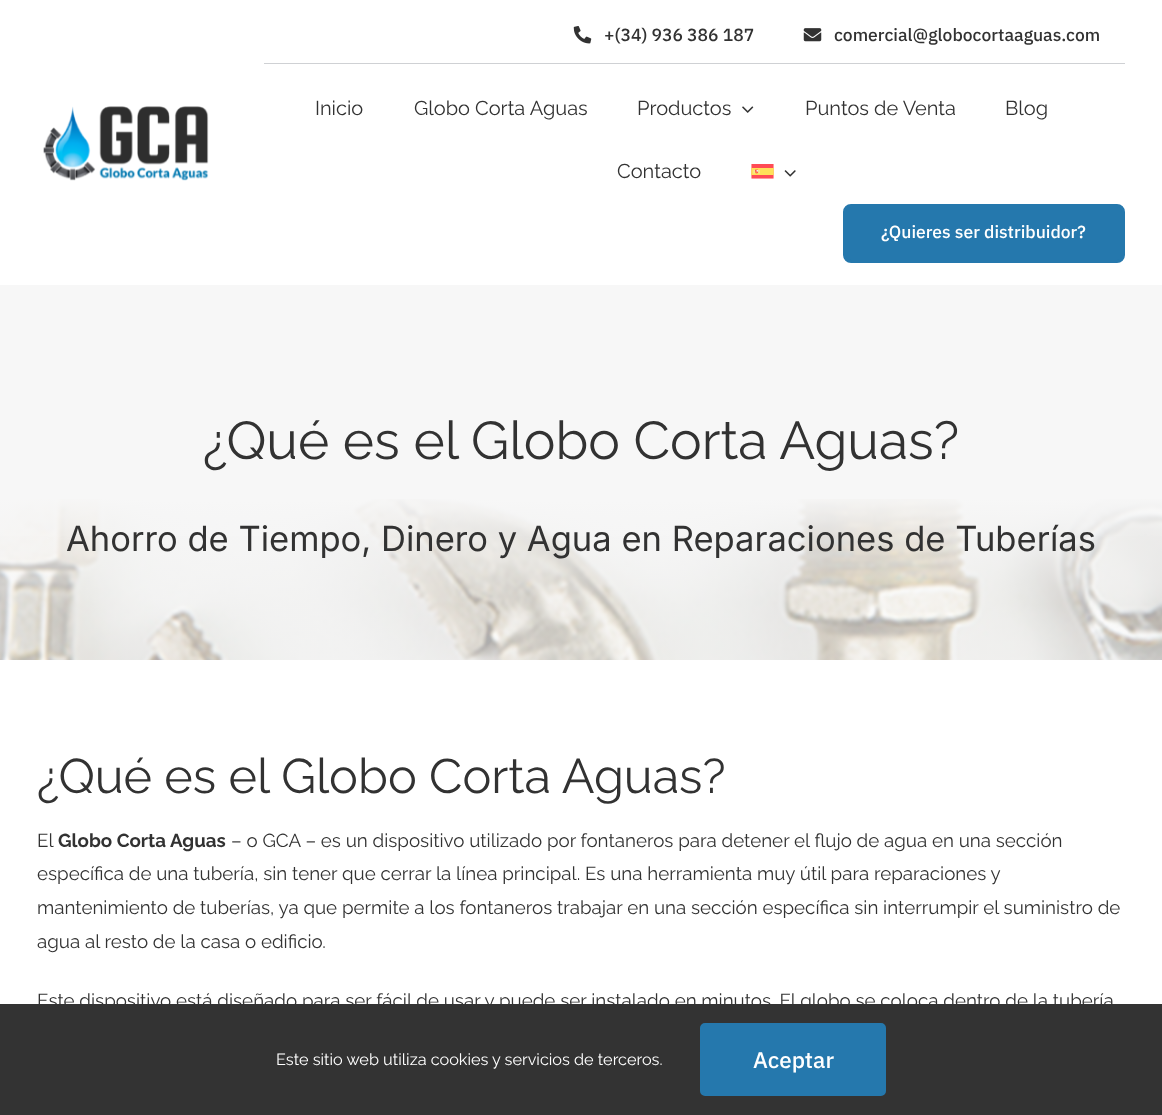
<svg xmlns="http://www.w3.org/2000/svg" width="1162" height="1115">
	<rect width="100%" height="100%" fill="#FFFFFF" />
	<image x="43" y="106" width="166" height="75" href="assets/img1.png" />
	<rect x="264" y="63" width="861" height="1" fill="#CFD1D4" />
	<image x="573" y="26" width="19" height="18" href="assets/img2.png" />
	<text x="604" y="41" font-family="IBM Plex Sans" font-size="17.5" font-weight="500" fill="#323232">+(34) 936 386 187</text>
	<image x="803" y="28" width="19" height="14" href="assets/img3.png" />
	<text x="834" y="41" font-family="IBM Plex Sans" font-size="17.5" font-weight="500" fill="#323232">comercial@globocortaaguas.com</text>
	<g font-family="Raleway" font-size="20" fill="#323232">
		<text x="315" y="115">Inicio</text>
		<text x="414" y="115">Globo Corta Aguas</text>
		<text x="637" y="115">Productos</text>
	</g>
	<image x="742" y="106" width="12" height="7" href="assets/img4.png" />
	<g font-family="Raleway" font-size="20" fill="#323232">
		<text x="805" y="115">Puntos de Venta</text>
		<text x="1005" y="115">Blog</text>
		<text x="617" y="178">Contacto</text>
	</g>
	<image x="751" y="164" width="23" height="15" href="assets/img5.png" />
	<image x="784" y="170" width="12" height="7" href="assets/img6.png" />
	<rect x="844.5" y="205.5" width="279" height="56" rx="6.5" fill="#2578AD" stroke="#2578AD" stroke-width="3" />
	<text x="881" y="238" font-family="IBM Plex Sans" font-size="17.5" font-weight="500" fill="#FFFFFF">¿Quieres ser distribuidor?</text>
	<rect x="0" y="285" width="1162" height="214" fill="#F7F7F7" />
	<image x="0" y="499" width="1162" height="161" href="assets/img7.png" />
	<text x="203" y="459" font-family="Raleway" font-size="53.25" fill="#323232">¿Qué es el Globo Corta Aguas?</text>
	<text x="66" y="551" font-family="Inter" font-size="34.55" fill="#323232">Ahorro de Tiempo, Dinero y Agua en Reparaciones de Tuberías</text>
	<text x="37" y="793" font-family="Raleway" font-size="48.5" fill="#323232">¿Qué es el Globo Corta Aguas?</text>
	<text x="37" y="847" font-family="Raleway" font-size="18.75" fill="#323232">El</text>
	<text x="58" y="847" font-family="Raleway" font-size="18.75" font-weight="700" fill="#323232">Globo Corta Aguas</text>
	<g font-family="Raleway" font-size="18.75" fill="#323232">
		<text x="231" y="847">– o GCA – es un dispositivo utilizado por fontaneros para detener el flujo de agua en una sección</text>
		<text x="37" y="880">específica de una tubería, sin tener que cerrar la línea principal. Es una herramienta muy útil para reparaciones y</text>
		<text x="37" y="914">mantenimiento de tuberías, ya que permite a los fontaneros trabajar en una sección específica sin interrumpir el suministro de</text>
		<text x="37" y="948">agua al resto de la casa o edificio.</text>
		<text x="37" y="1007">Este dispositivo está diseñado para ser fácil de usar y puede ser instalado en minutos. El globo se coloca dentro de la tubería</text>
	</g>
	<rect x="0" y="1004" width="1162" height="111" fill="#333333" />
	<text x="276" y="1065" font-family="Raleway" font-size="16.25" fill="#FFFFFF">Este sitio web utiliza cookies y servicios de terceros.</text>
	<rect x="701.5" y="1024.5" width="183" height="70" rx="3.5" fill="#2578AD" stroke="#2578AD" stroke-width="3" />
	<text x="753" y="1068" font-family="IBM Plex Sans" font-size="22.5" font-weight="500" fill="#FFFFFF">Aceptar</text>
</svg>
